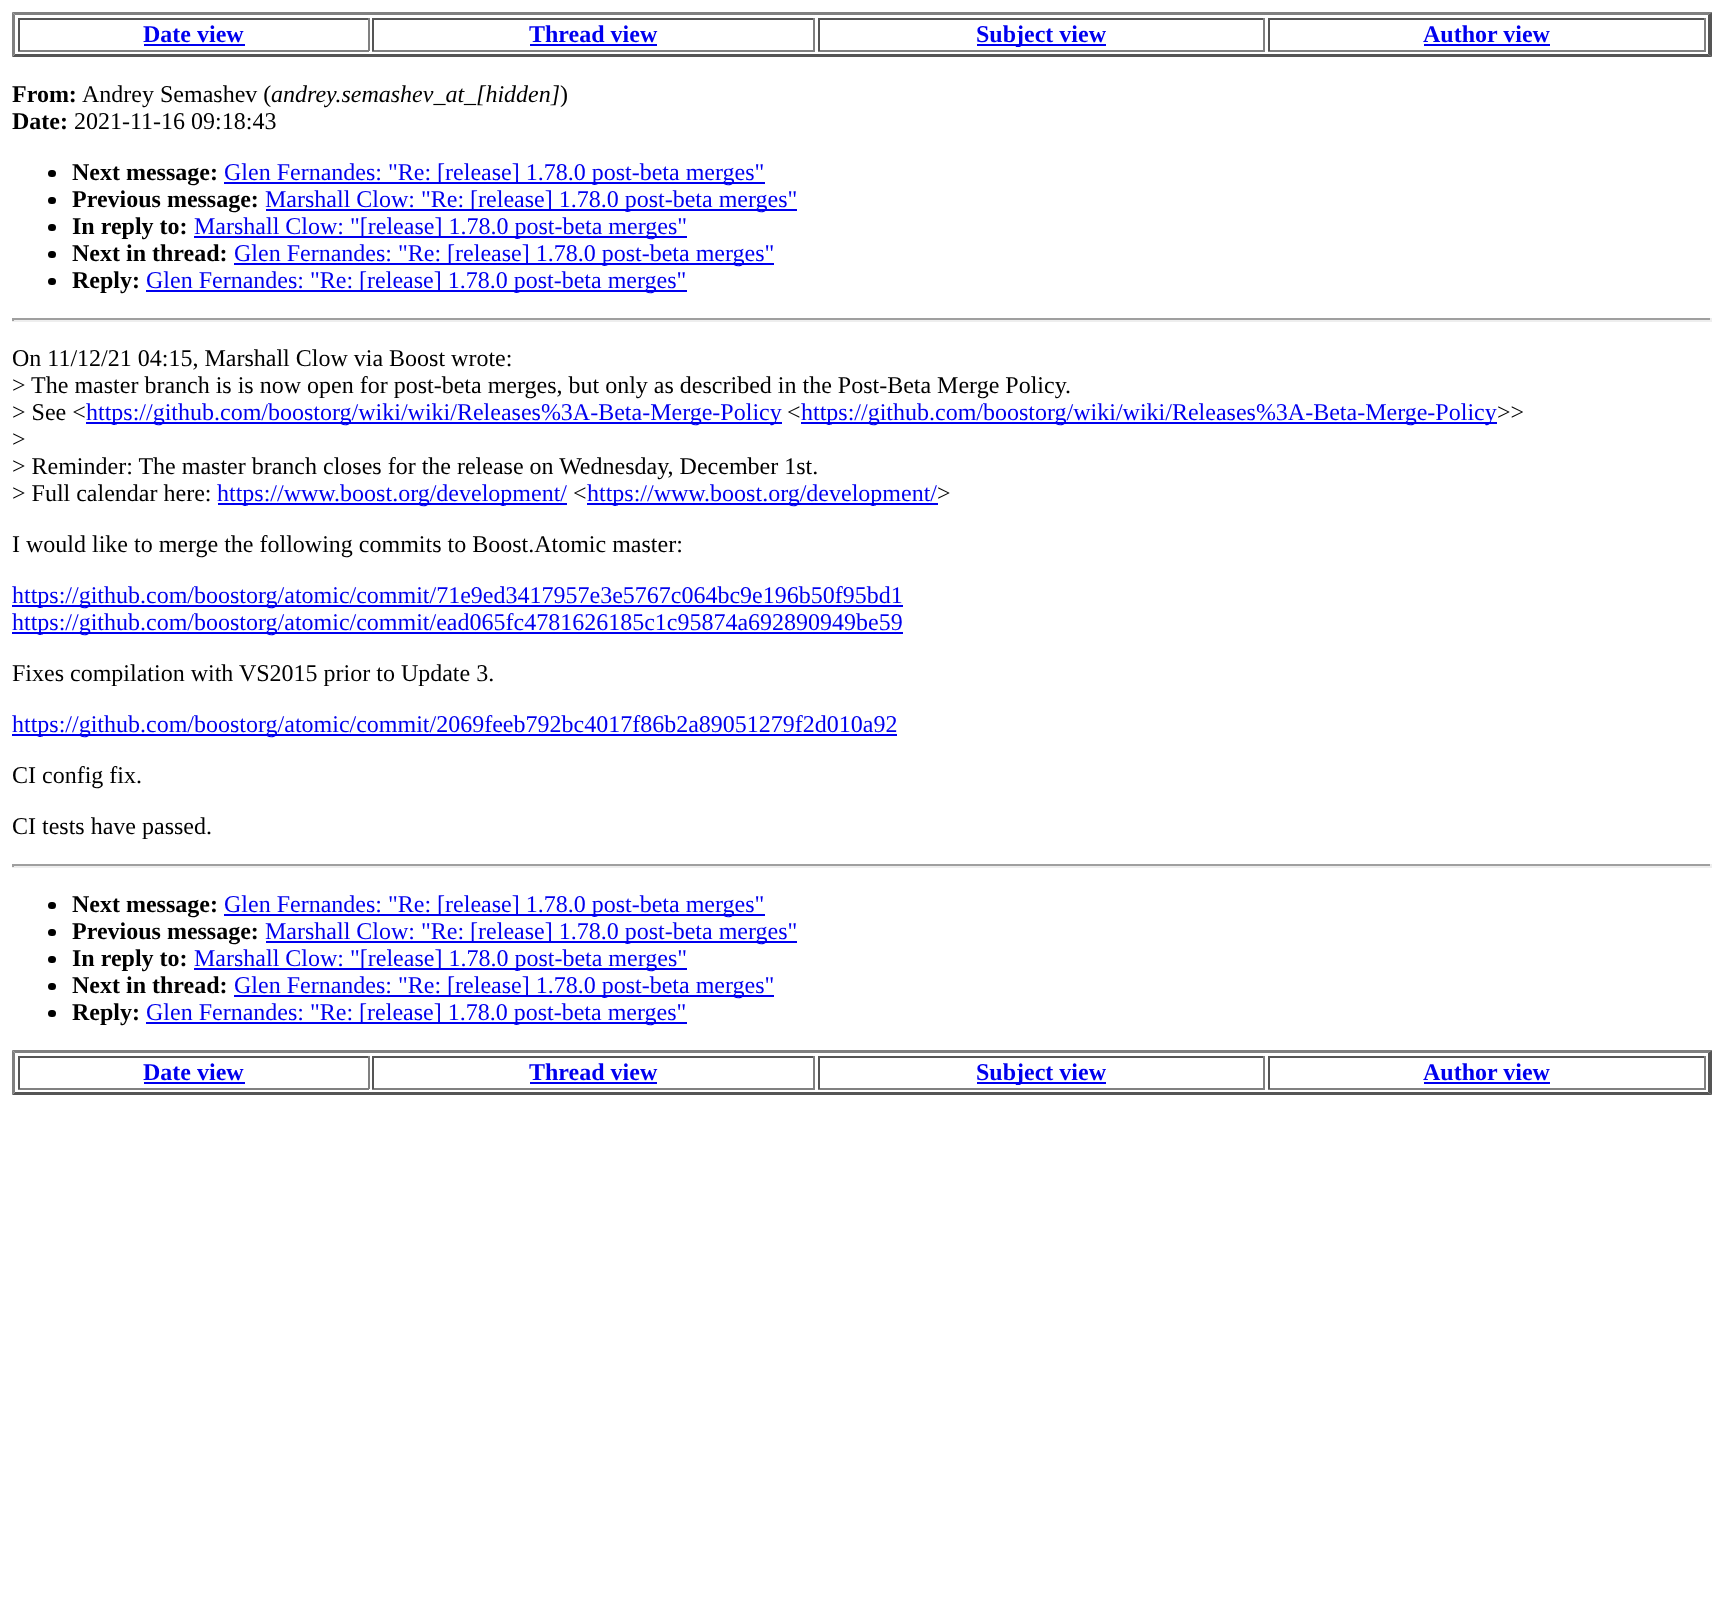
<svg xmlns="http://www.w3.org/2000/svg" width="1723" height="1619">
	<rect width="100%" height="100%" fill="#FFFFFF" />
	<path d="M12 12H1712L1708 15H15Z" fill="#808080" />
	<path d="M1712 12V57L1708 54V15Z" fill="#555555" />
	<path d="M1712 57H12L15 54H1708Z" fill="#555555" />
	<path d="M12 57V12L15 15V54Z" fill="#808080" />
	<rect x="18" y="18" width="351" height="2" fill="#555555" />
	<rect x="368" y="18" width="2" height="33" fill="#808080" />
	<rect x="18" y="50" width="351" height="2" fill="#808080" />
	<rect x="18" y="18" width="2" height="33" fill="#555555" />
	<text x="143" y="42" font-family="Liberation Serif" font-size="24" font-weight="700" fill="#0000EE">Date view</text>
	<rect x="144" y="44" width="101" height="2" fill="#0000EE" />
	<rect x="372" y="18" width="443" height="2" fill="#555555" />
	<rect x="813" y="18" width="2" height="33" fill="#808080" />
	<rect x="372" y="50" width="443" height="2" fill="#808080" />
	<rect x="372" y="18" width="2" height="33" fill="#555555" />
	<text x="529" y="42" font-family="Liberation Serif" font-size="24" font-weight="700" fill="#0000EE">Thread view</text>
	<rect x="530" y="44" width="127" height="2" fill="#0000EE" />
	<rect x="818" y="18" width="447" height="2" fill="#555555" />
	<rect x="1263" y="18" width="2" height="33" fill="#808080" />
	<rect x="818" y="50" width="447" height="2" fill="#808080" />
	<rect x="818" y="18" width="2" height="33" fill="#555555" />
	<rect x="977" y="44" width="129" height="2" fill="#0000EE" />
	<text x="976" y="42" font-family="Liberation Serif" font-size="24" font-weight="700" fill="#0000EE">Subject view</text>
	<rect x="1268" y="18" width="438" height="2" fill="#555555" />
	<rect x="1704" y="18" width="2" height="33" fill="#808080" />
	<rect x="1268" y="50" width="438" height="2" fill="#808080" />
	<rect x="1268" y="18" width="2" height="33" fill="#555555" />
	<text x="1423" y="42" font-family="Liberation Serif" font-size="24" font-weight="700" fill="#0000EE">Author view</text>
	<rect x="1424" y="44" width="126" height="2" fill="#0000EE" />
	<text x="12" y="102" font-family="Liberation Serif" font-size="24" font-weight="700" fill="#000000">From:</text>
	<text x="82" y="102" font-family="Liberation Serif" font-size="24" fill="#000000">Andrey Semashev (</text>
	<text x="271" y="102" font-family="Liberation Serif" font-size="24" font-style="italic" fill="#000000">andrey.semashev_at_[hidden]</text>
	<text x="560" y="102" font-family="Liberation Serif" font-size="24" fill="#000000">)</text>
	<text x="12" y="129" font-family="Liberation Serif" font-size="24" font-weight="700" fill="#000000">Date:</text>
	<text x="74" y="129" font-family="Liberation Serif" font-size="24" fill="#000000">2021-11-16 09:18:43</text>
	<rect x="48" y="170" width="8" height="7" rx="3.5" fill="#000000" />
	<text x="72" y="180" font-family="Liberation Serif" font-size="24" font-weight="700" fill="#000000">Next message:</text>
	<rect x="224" y="182" width="541" height="2" fill="#0000EE" />
	<text x="224" y="180" font-family="Liberation Serif" font-size="24" fill="#0000EE">Glen Fernandes: "Re: [release] 1.78.0 post-beta merges"</text>
	<rect x="48" y="197" width="8" height="7" rx="3.5" fill="#000000" />
	<text x="72" y="207" font-family="Liberation Serif" font-size="24" font-weight="700" fill="#000000">Previous message:</text>
	<rect x="266" y="209" width="531" height="2" fill="#0000EE" />
	<text x="265" y="207" font-family="Liberation Serif" font-size="24" fill="#0000EE">Marshall Clow: "Re: [release] 1.78.0 post-beta merges"</text>
	<rect x="48" y="224" width="8" height="7" rx="3.5" fill="#000000" />
	<text x="72" y="234" font-family="Liberation Serif" font-size="24" font-weight="700" fill="#000000">In reply to:</text>
	<rect x="194" y="236" width="493" height="2" fill="#0000EE" />
	<text x="194" y="234" font-family="Liberation Serif" font-size="24" fill="#0000EE">Marshall Clow: "[release] 1.78.0 post-beta merges"</text>
	<rect x="48" y="251" width="8" height="7" rx="3.5" fill="#000000" />
	<text x="72" y="261" font-family="Liberation Serif" font-size="24" font-weight="700" fill="#000000">Next in thread:</text>
	<rect x="234" y="263" width="540" height="2" fill="#0000EE" />
	<text x="234" y="261" font-family="Liberation Serif" font-size="24" fill="#0000EE">Glen Fernandes: "Re: [release] 1.78.0 post-beta merges"</text>
	<rect x="48" y="278" width="8" height="7" rx="3.5" fill="#000000" />
	<text x="72" y="288" font-family="Liberation Serif" font-size="24" font-weight="700" fill="#000000">Reply:</text>
	<rect x="146" y="290" width="541" height="2" fill="#0000EE" />
	<text x="146" y="288" font-family="Liberation Serif" font-size="24" fill="#0000EE">Glen Fernandes: "Re: [release] 1.78.0 post-beta merges"</text>
	<rect x="12" y="318" width="1700" height="2" fill="#9F9F9F" />
	<rect x="1710" y="318" width="2" height="3" fill="#EEEEEE" />
	<rect x="12" y="320" width="1700" height="2" fill="#EEEEEE" />
	<rect x="12" y="318" width="2" height="3" fill="#9F9F9F" />
	<g font-family="Liberation Serif" font-size="24" fill="#000000">
		<text x="12" y="366">On 11/12/21 04:15, Marshall Clow via Boost wrote:</text>
		<text x="12" y="393">&gt; The master branch is is now open for post-beta merges, but only as described in the Post-Beta Merge Policy.</text>
		<text x="12" y="420">&gt; See &lt;</text>
	</g>
	<rect x="86" y="422" width="696" height="2" fill="#0000EE" />
	<text x="86" y="420" font-family="Liberation Serif" font-size="24" fill="#0000EE">https://github.com/boostorg/wiki/wiki/Releases%3A-Beta-Merge-Policy</text>
	<text x="787" y="420" font-family="Liberation Serif" font-size="24" fill="#000000">&lt;</text>
	<rect x="801" y="422" width="696" height="2" fill="#0000EE" />
	<text x="801" y="420" font-family="Liberation Serif" font-size="24" fill="#0000EE">https://github.com/boostorg/wiki/wiki/Releases%3A-Beta-Merge-Policy</text>
	<g font-family="Liberation Serif" font-size="24" fill="#000000">
		<text x="1497" y="420">&gt;&gt;</text>
		<text x="12" y="447">&gt;</text>
		<text x="12" y="474">&gt; Reminder: The master branch closes for the release on Wednesday, December 1st.</text>
		<text x="12" y="501">&gt; Full calendar here:</text>
	</g>
	<rect x="218" y="503" width="349" height="2" fill="#0000EE" />
	<text x="217" y="501" font-family="Liberation Serif" font-size="24" fill="#0000EE">https://www.boost.org/development/</text>
	<text x="573" y="501" font-family="Liberation Serif" font-size="24" fill="#000000">&lt;</text>
	<rect x="587" y="503" width="351" height="2" fill="#0000EE" />
	<text x="587" y="501" font-family="Liberation Serif" font-size="24" fill="#0000EE">https://www.boost.org/development/</text>
	<g font-family="Liberation Serif" font-size="24" fill="#000000">
		<text x="937" y="501">&gt;</text>
		<text x="12" y="552">I would like to merge the following commits to Boost.Atomic master:</text>
	</g>
	<rect x="12" y="605" width="891" height="2" fill="#0000EE" />
	<text x="12" y="603" font-family="Liberation Serif" font-size="24" fill="#0000EE">https://github.com/boostorg/atomic/commit/71e9ed3417957e3e5767c064bc9e196b50f95bd1</text>
	<rect x="12" y="632" width="891" height="2" fill="#0000EE" />
	<text x="12" y="630" font-family="Liberation Serif" font-size="24" fill="#0000EE">https://github.com/boostorg/atomic/commit/ead065fc4781626185c1c95874a692890949be59</text>
	<text x="12" y="681" font-family="Liberation Serif" font-size="24" fill="#000000">Fixes compilation with VS2015 prior to Update 3.</text>
	<rect x="12" y="734" width="885" height="2" fill="#0000EE" />
	<text x="12" y="732" font-family="Liberation Serif" font-size="24" fill="#0000EE">https://github.com/boostorg/atomic/commit/2069feeb792bc4017f86b2a89051279f2d010a92</text>
	<g font-family="Liberation Serif" font-size="24" fill="#000000">
		<text x="12" y="783">CI config fix.</text>
		<text x="12" y="834">CI tests have passed.</text>
	</g>
	<rect x="12" y="864" width="1700" height="2" fill="#9F9F9F" />
	<rect x="1710" y="864" width="2" height="3" fill="#EEEEEE" />
	<rect x="12" y="866" width="1700" height="2" fill="#EEEEEE" />
	<rect x="12" y="864" width="2" height="3" fill="#9F9F9F" />
	<rect x="48" y="902" width="8" height="7" rx="3.5" fill="#000000" />
	<text x="72" y="912" font-family="Liberation Serif" font-size="24" font-weight="700" fill="#000000">Next message:</text>
	<rect x="224" y="914" width="541" height="2" fill="#0000EE" />
	<text x="224" y="912" font-family="Liberation Serif" font-size="24" fill="#0000EE">Glen Fernandes: "Re: [release] 1.78.0 post-beta merges"</text>
	<rect x="48" y="929" width="8" height="7" rx="3.5" fill="#000000" />
	<text x="72" y="939" font-family="Liberation Serif" font-size="24" font-weight="700" fill="#000000">Previous message:</text>
	<rect x="266" y="941" width="531" height="2" fill="#0000EE" />
	<text x="265" y="939" font-family="Liberation Serif" font-size="24" fill="#0000EE">Marshall Clow: "Re: [release] 1.78.0 post-beta merges"</text>
	<rect x="48" y="956" width="8" height="7" rx="3.5" fill="#000000" />
	<text x="72" y="966" font-family="Liberation Serif" font-size="24" font-weight="700" fill="#000000">In reply to:</text>
	<rect x="194" y="968" width="493" height="2" fill="#0000EE" />
	<text x="194" y="966" font-family="Liberation Serif" font-size="24" fill="#0000EE">Marshall Clow: "[release] 1.78.0 post-beta merges"</text>
	<rect x="48" y="983" width="8" height="7" rx="3.5" fill="#000000" />
	<text x="72" y="993" font-family="Liberation Serif" font-size="24" font-weight="700" fill="#000000">Next in thread:</text>
	<rect x="234" y="995" width="540" height="2" fill="#0000EE" />
	<text x="234" y="993" font-family="Liberation Serif" font-size="24" fill="#0000EE">Glen Fernandes: "Re: [release] 1.78.0 post-beta merges"</text>
	<rect x="48" y="1010" width="8" height="7" rx="3.5" fill="#000000" />
	<text x="72" y="1020" font-family="Liberation Serif" font-size="24" font-weight="700" fill="#000000">Reply:</text>
	<rect x="146" y="1022" width="541" height="2" fill="#0000EE" />
	<text x="146" y="1020" font-family="Liberation Serif" font-size="24" fill="#0000EE">Glen Fernandes: "Re: [release] 1.78.0 post-beta merges"</text>
	<path d="M12 1050H1712L1708 1053H15Z" fill="#808080" />
	<path d="M1712 1050V1095L1708 1092V1053Z" fill="#555555" />
	<path d="M1712 1095H12L15 1092H1708Z" fill="#555555" />
	<path d="M12 1095V1050L15 1053V1092Z" fill="#808080" />
	<rect x="18" y="1056" width="351" height="2" fill="#555555" />
	<rect x="368" y="1056" width="2" height="33" fill="#808080" />
	<rect x="18" y="1088" width="351" height="2" fill="#808080" />
	<rect x="18" y="1056" width="2" height="33" fill="#555555" />
	<text x="143" y="1080" font-family="Liberation Serif" font-size="24" font-weight="700" fill="#0000EE">Date view</text>
	<rect x="144" y="1082" width="101" height="2" fill="#0000EE" />
	<rect x="372" y="1056" width="443" height="2" fill="#555555" />
	<rect x="813" y="1056" width="2" height="33" fill="#808080" />
	<rect x="372" y="1088" width="443" height="2" fill="#808080" />
	<rect x="372" y="1056" width="2" height="33" fill="#555555" />
	<text x="529" y="1080" font-family="Liberation Serif" font-size="24" font-weight="700" fill="#0000EE">Thread view</text>
	<rect x="530" y="1082" width="127" height="2" fill="#0000EE" />
	<rect x="818" y="1056" width="447" height="2" fill="#555555" />
	<rect x="1263" y="1056" width="2" height="33" fill="#808080" />
	<rect x="818" y="1088" width="447" height="2" fill="#808080" />
	<rect x="818" y="1056" width="2" height="33" fill="#555555" />
	<rect x="977" y="1082" width="129" height="2" fill="#0000EE" />
	<text x="976" y="1080" font-family="Liberation Serif" font-size="24" font-weight="700" fill="#0000EE">Subject view</text>
	<rect x="1268" y="1056" width="438" height="2" fill="#555555" />
	<rect x="1704" y="1056" width="2" height="33" fill="#808080" />
	<rect x="1268" y="1088" width="438" height="2" fill="#808080" />
	<rect x="1268" y="1056" width="2" height="33" fill="#555555" />
	<text x="1423" y="1080" font-family="Liberation Serif" font-size="24" font-weight="700" fill="#0000EE">Author view</text>
	<rect x="1424" y="1082" width="126" height="2" fill="#0000EE" />
</svg>
